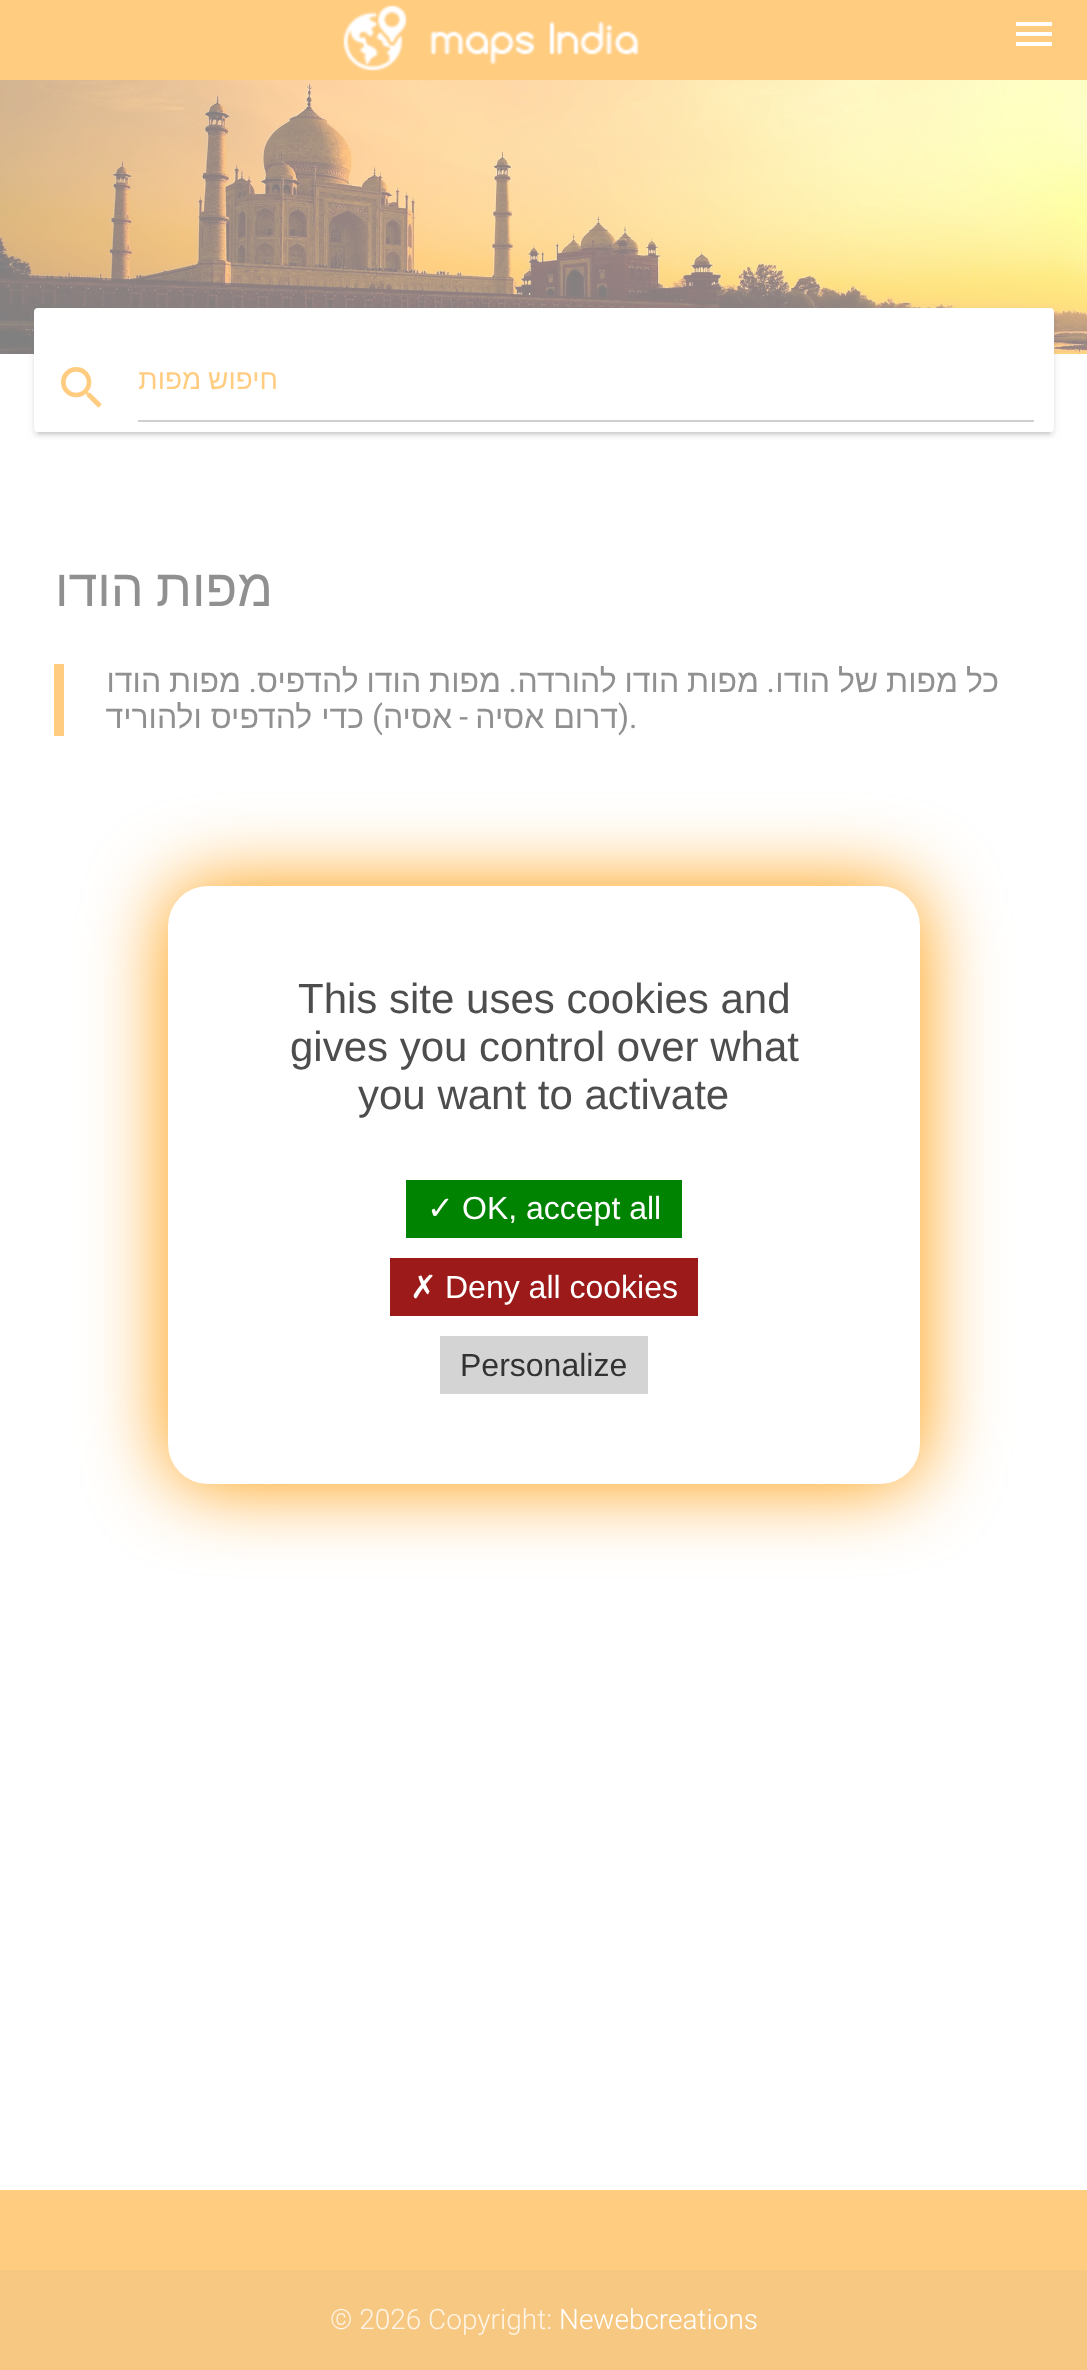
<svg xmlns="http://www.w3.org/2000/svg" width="1087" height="2370">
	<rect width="100%" height="100%" fill="#FFFFFF" />
	<rect x="0" y="0" width="1087" height="80" fill="#FFCC80" />
	<image x="343" y="5" width="296" height="66" href="assets/img1.png" />
	<path d="M1016 22H1052V26H1016ZM1016 36V32H1052V36ZM1016 46V42H1052V46Z" fill="#FFFFFF" />
	<image x="0" y="80" width="1087" height="274" href="assets/img2.png" />
	<rect x="38" y="318" width="1012" height="116" fill="#808080" fill-opacity="0.2" filter="blur(1px)" />
	<rect x="34" y="310" width="1020" height="124" rx="4" fill="#808080" fill-opacity="0.12" filter="blur(5px)" />
	<rect x="34" y="312" width="1020" height="124" rx="4" fill="#808080" fill-opacity="0.14" filter="blur(2px)" />
	<rect x="34" y="308" width="1020" height="124" rx="4" fill="#FFFFFF" />
	<image x="61" y="367" width="41" height="41" href="assets/img3.png" />
	<text x="278" y="389" word-spacing="-1" font-family="Liberation Sans" font-size="28" direction="rtl" fill="#FFCC80">חיפוש מפות</text>
	<rect x="138" y="420" width="896" height="2" fill="#CFCFCF" />
	<text x="273" y="606" word-spacing="-2" font-family="Liberation Sans" font-size="52" direction="rtl" fill="#909090">מפות הודו</text>
	<rect x="54" y="664" width="10" height="72" fill="#FFCC80" />
	<text x="241" y="692" word-spacing="-1" font-family="Liberation Sans" font-size="32" direction="rtl" fill="#909090">מפות הודו</text>
	<text x="257" y="692" font-family="Roboto" font-size="32" direction="rtl" fill="#909090">.</text>
	<text x="501" y="692" word-spacing="-1" font-family="Liberation Sans" font-size="32" direction="rtl" fill="#909090">מפות הודו להדפיס</text>
	<text x="517" y="692" font-family="Roboto" font-size="32" direction="rtl" fill="#909090">.</text>
	<text x="759" y="692" word-spacing="-1" font-family="Liberation Sans" font-size="32" direction="rtl" fill="#909090">מפות הודו להורדה</text>
	<text x="775" y="692" font-family="Roboto" font-size="32" direction="rtl" fill="#909090">.</text>
	<g font-family="Liberation Sans" font-size="32" direction="rtl" fill="#909090">
		<text x="999" y="692" word-spacing="-1">כל מפות של הודו</text>
		<text x="364" y="728">כדי להדפיס ולהוריד</text>
	</g>
	<text x="383" y="728" font-family="Roboto" font-size="32" direction="rtl" fill="#909090">)</text>
	<text x="452" y="728" font-family="Liberation Sans" font-size="32" direction="rtl" fill="#909090">אסיה</text>
	<text x="468" y="728" font-family="Roboto" font-size="32" direction="rtl" fill="#909090">-</text>
	<text x="618" y="728" font-family="Liberation Sans" font-size="32" direction="rtl" fill="#909090">דרום אסיה</text>
	<text x="629" y="728" font-family="Roboto" font-size="32" direction="rtl" fill="#909090">(</text>
	<text x="629" y="728" font-family="Roboto" font-size="32" fill="#909090">.</text>
	<rect x="168" y="886" width="752" height="598" rx="40" fill="#FF9800" filter="blur(40px)" />
	<rect x="168" y="886" width="752" height="598" rx="40" fill="#FFFFFF" />
	<g font-family="Liberation Sans" font-size="42" fill="#4D4D4D">
		<text x="298" y="1013">This site uses cookies and</text>
		<text x="290" y="1061">gives you control over what</text>
		<text x="358" y="1109">you want to activate</text>
	</g>
	<rect x="406" y="1180" width="276" height="58" fill="#008300" />
	<text x="427" y="1219" font-family="DejaVu Sans" font-size="32" fill="#FFFFFF">✓</text>
	<text x="462" y="1219" font-family="Liberation Sans" font-size="32" fill="#FFFFFF">OK, accept all</text>
	<rect x="390" y="1258" width="308" height="58" fill="#9C1A1A" />
	<text x="410" y="1298" font-family="DejaVu Sans" font-size="32" fill="#FFFFFF">✗</text>
	<text x="445" y="1298" font-family="Liberation Sans" font-size="32" fill="#FFFFFF">Deny all cookies</text>
	<rect x="440" y="1336" width="208" height="58" fill="#D4D4D4" />
	<text x="460" y="1376" font-family="Liberation Sans" font-size="32" fill="#333333">Personalize</text>
	<rect x="0" y="2190" width="1087" height="80" fill="#FFCC80" />
	<rect x="0" y="2270" width="1087" height="100" fill="#F7C882" />
	<text x="330" y="2329" font-family="Roboto" font-size="28" font-weight="300" fill="#FEF4E6">© 2026 Copyright:</text>
	<text x="559" y="2329" font-family="Roboto" font-size="28" font-weight="300" fill="#FFFFFF">Newebcreations</text>
</svg>
